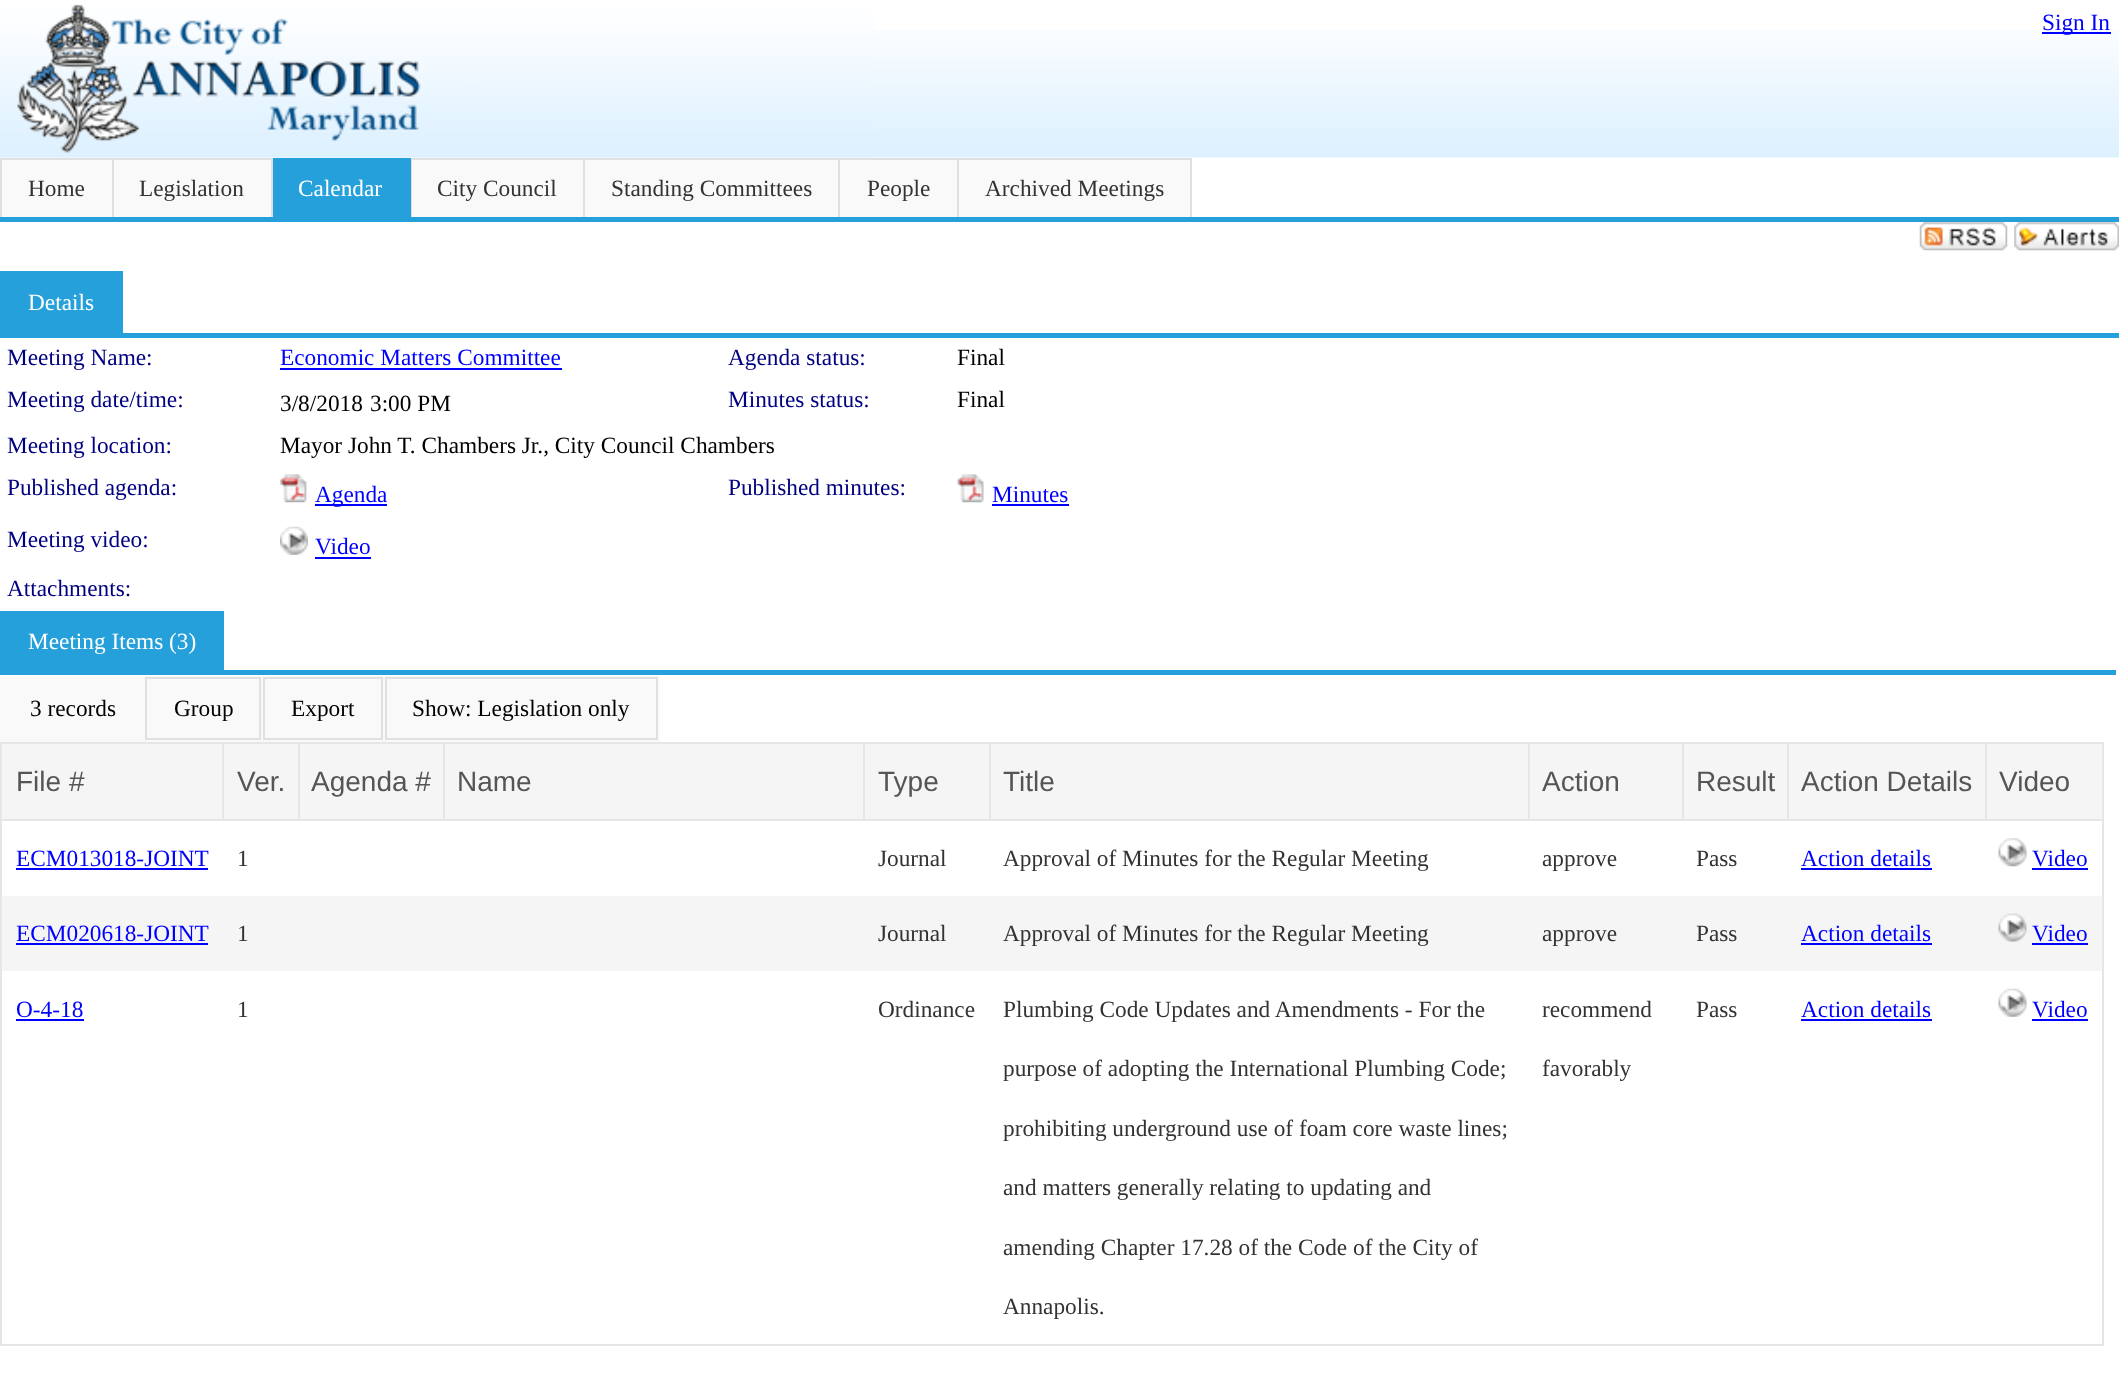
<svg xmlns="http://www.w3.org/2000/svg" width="2119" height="1396">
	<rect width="100%" height="100%" fill="#FFFFFF" />
	<image x="0" y="30" width="2119" height="128" href="assets/img1.png" />
	<image x="0" y="4" width="875" height="154" href="assets/img2.png" />
	<rect x="2042" y="32" width="69" height="2" fill="#0000FF" />
	<text x="2042" y="30" font-family="Liberation Serif" font-size="23.3" fill="#0000FF">Sign In</text>
	<rect x="0" y="217" width="2119" height="5" fill="#25A0DA" />
	<rect x="2" y="160" width="110" height="57" fill="#F9F9F9" />
	<rect x="0" y="158" width="273" height="2" fill="#E0E0E0" />
	<rect x="112" y="158" width="2" height="59" fill="#E0E0E0" />
	<rect x="0" y="158" width="2" height="59" fill="#E0E0E0" />
	<text x="28" y="196" font-family="Liberation Serif" font-size="23.3" fill="#333333">Home</text>
	<rect x="114" y="160" width="157" height="57" fill="#F9F9F9" />
	<rect x="271" y="158" width="2" height="59" fill="#E0E0E0" />
	<text x="139" y="196" font-family="Liberation Serif" font-size="23.3" fill="#333333">Legislation</text>
	<rect x="273" y="158" width="138" height="59" fill="#25A0DA" />
	<text x="298" y="196" font-family="Liberation Serif" font-size="23.3" fill="#FFFFFF">Calendar</text>
	<rect x="412" y="160" width="171" height="57" fill="#F9F9F9" />
	<rect x="411" y="158" width="781" height="2" fill="#E0E0E0" />
	<rect x="583" y="158" width="2" height="59" fill="#E0E0E0" />
	<rect x="411" y="158" width="1" height="59" fill="#E0E0E0" />
	<text x="437" y="196" font-family="Liberation Serif" font-size="23.3" fill="#333333">City Council</text>
	<rect x="585" y="160" width="253" height="57" fill="#F9F9F9" />
	<rect x="838" y="158" width="2" height="59" fill="#E0E0E0" />
	<text x="611" y="196" font-family="Liberation Serif" font-size="23.3" fill="#333333">Standing Committees</text>
	<rect x="840" y="160" width="117" height="57" fill="#F9F9F9" />
	<rect x="957" y="158" width="2" height="59" fill="#E0E0E0" />
	<text x="867" y="196" font-family="Liberation Serif" font-size="23.3" fill="#333333">People</text>
	<rect x="959" y="160" width="231" height="57" fill="#F9F9F9" />
	<rect x="1190" y="158" width="2" height="59" fill="#E0E0E0" />
	<text x="985" y="196" font-family="Liberation Serif" font-size="23.3" fill="#333333">Archived Meetings</text>
	<image x="1919" y="222" width="89" height="29" href="assets/img3.png" />
	<image x="2014" y="222" width="105" height="29" href="assets/img4.png" />
	<rect x="0" y="333" width="2119" height="5" fill="#25A0DA" />
	<rect x="0" y="271" width="123" height="62" fill="#25A0DA" />
	<text x="28" y="310" font-family="Liberation Serif" font-size="23.3" fill="#FFFFFF">Details</text>
	<text x="7" y="365" font-family="Liberation Serif" font-size="23.3" fill="#000080">Meeting Name:</text>
	<text x="280" y="365" font-family="Liberation Serif" font-size="23.3" fill="#0000FF">Economic Matters Committee</text>
	<rect x="280" y="368" width="282" height="2" fill="#0000FF" />
	<text x="728" y="365" font-family="Liberation Serif" font-size="23.3" fill="#000080">Agenda status:</text>
	<text x="957" y="365" font-family="Liberation Serif" font-size="23.3" fill="#000000">Final</text>
	<text x="7" y="407" font-family="Liberation Serif" font-size="23.3" fill="#000080">Meeting date/time:</text>
	<g font-family="Liberation Serif" font-size="23.3" fill="#000000">
		<text x="280" y="411">3/8/2018</text>
		<text x="370" y="411">3:00 PM</text>
	</g>
	<text x="728" y="407" font-family="Liberation Serif" font-size="23.3" fill="#000080">Minutes status:</text>
	<text x="957" y="407" font-family="Liberation Serif" font-size="23.3" fill="#000000">Final</text>
	<text x="7" y="453" font-family="Liberation Serif" font-size="23.3" fill="#000080">Meeting location:</text>
	<text x="280" y="453" font-family="Liberation Serif" font-size="23.3" fill="#000000">Mayor John T. Chambers Jr., City Council Chambers</text>
	<text x="7" y="495" font-family="Liberation Serif" font-size="23.3" fill="#000080">Published agenda:</text>
	<image x="280" y="474" width="27" height="29" href="assets/img5.png" />
	<rect x="315" y="504" width="72" height="2" fill="#0000FF" />
	<text x="315" y="502" font-family="Liberation Serif" font-size="23.3" fill="#0000FF">Agenda</text>
	<text x="728" y="495" font-family="Liberation Serif" font-size="23.3" fill="#000080">Published minutes:</text>
	<image x="957" y="474" width="27" height="29" href="assets/img6.png" />
	<text x="992" y="502" font-family="Liberation Serif" font-size="23.3" fill="#0000FF">Minutes</text>
	<rect x="992" y="504" width="77" height="2" fill="#0000FF" />
	<text x="7" y="547" font-family="Liberation Serif" font-size="23.3" fill="#000080">Meeting video:</text>
	<image x="280" y="526" width="28" height="29" href="assets/img7.png" />
	<text x="315" y="554" font-family="Liberation Serif" font-size="23.3" fill="#0000FF">Video</text>
	<rect x="315" y="557" width="56" height="2" fill="#0000FF" />
	<text x="7" y="596" font-family="Liberation Serif" font-size="23.3" fill="#000080">Attachments:</text>
	<rect x="0" y="670" width="2116" height="5" fill="#25A0DA" />
	<rect x="0" y="611" width="224" height="59" fill="#25A0DA" />
	<text x="28" y="649" font-family="Liberation Serif" font-size="23.3" fill="#FFFFFF">Meeting Items (3)</text>
	<rect x="0" y="676" width="660" height="66" fill="#F9F9F9" />
	<text x="30" y="716" font-family="Liberation Serif" font-size="23.3" fill="#000000">3 records</text>
	<rect x="146" y="678" width="114" height="61" fill="none" stroke="#E0E0E0" stroke-width="2" />
	<text x="174" y="716" font-family="Liberation Serif" font-size="23.3" fill="#000000">Group</text>
	<rect x="264" y="678" width="118" height="61" fill="none" stroke="#E0E0E0" stroke-width="2" />
	<text x="291" y="716" font-family="Liberation Serif" font-size="23.3" fill="#000000">Export</text>
	<rect x="386" y="678" width="271" height="61" fill="none" stroke="#E0E0E0" stroke-width="2" />
	<text x="412" y="716" font-family="Liberation Serif" font-size="23.3" fill="#000000">Show: Legislation only</text>
	<rect x="1" y="743" width="2102" height="602" fill="none" stroke="#E6E6E6" stroke-width="2" />
	<rect x="2" y="744" width="220" height="75" fill="#F5F5F5" />
	<rect x="2" y="819" width="2100" height="2" fill="#E6E6E6" />
	<text x="16" y="791" font-family="Liberation Sans" font-size="28" fill="#555555">File #</text>
	<rect x="224" y="744" width="74" height="75" fill="#F5F5F5" />
	<rect x="222" y="744" width="2" height="77" fill="#E6E6E6" />
	<text x="237" y="791" font-family="Liberation Sans" font-size="28" fill="#555555">Ver.</text>
	<rect x="300" y="744" width="143" height="75" fill="#F5F5F5" />
	<rect x="298" y="744" width="2" height="77" fill="#E6E6E6" />
	<text x="311" y="791" font-family="Liberation Sans" font-size="28" fill="#555555">Agenda #</text>
	<rect x="445" y="744" width="418" height="75" fill="#F5F5F5" />
	<rect x="443" y="744" width="2" height="77" fill="#E6E6E6" />
	<text x="457" y="791" font-family="Liberation Sans" font-size="28" fill="#555555">Name</text>
	<rect x="865" y="744" width="124" height="75" fill="#F5F5F5" />
	<rect x="863" y="744" width="2" height="77" fill="#E6E6E6" />
	<text x="878" y="791" font-family="Liberation Sans" font-size="28" fill="#555555">Type</text>
	<rect x="991" y="744" width="537" height="75" fill="#F5F5F5" />
	<rect x="989" y="744" width="2" height="77" fill="#E6E6E6" />
	<text x="1003" y="791" font-family="Liberation Sans" font-size="28" fill="#555555">Title</text>
	<rect x="1530" y="744" width="152" height="75" fill="#F5F5F5" />
	<rect x="1528" y="744" width="2" height="77" fill="#E6E6E6" />
	<text x="1542" y="791" font-family="Liberation Sans" font-size="28" fill="#555555">Action</text>
	<rect x="1684" y="744" width="103" height="75" fill="#F5F5F5" />
	<rect x="1682" y="744" width="2" height="77" fill="#E6E6E6" />
	<text x="1696" y="791" font-family="Liberation Sans" font-size="28" fill="#555555">Result</text>
	<rect x="1789" y="744" width="196" height="75" fill="#F5F5F5" />
	<rect x="1787" y="744" width="2" height="77" fill="#E6E6E6" />
	<text x="1801" y="791" font-family="Liberation Sans" font-size="28" fill="#555555">Action Details</text>
	<rect x="1987" y="744" width="115" height="75" fill="#F5F5F5" />
	<rect x="1985" y="744" width="2" height="77" fill="#E6E6E6" />
	<text x="1999" y="791" font-family="Liberation Sans" font-size="28" fill="#555555">Video</text>
	<text x="16" y="866" font-family="Liberation Serif" font-size="23.3" fill="#0000FF">ECM013018-JOINT</text>
	<rect x="16" y="868" width="192" height="2" fill="#0000FF" />
	<g font-family="Liberation Serif" font-size="23.3" fill="#333333">
		<text x="237" y="866">1</text>
		<text x="878" y="866">Journal</text>
		<text x="1003" y="866">Approval of Minutes for the Regular Meeting</text>
		<text x="1542" y="866">approve</text>
		<text x="1696" y="866">Pass</text>
	</g>
	<text x="1801" y="866" font-family="Liberation Serif" font-size="23.3" fill="#0000FF">Action details</text>
	<rect x="1801" y="868" width="131" height="2" fill="#0000FF" />
	<image x="1998" y="838" width="29" height="29" href="assets/img8.png" />
	<text x="2032" y="866" font-family="Liberation Serif" font-size="23.3" fill="#0000FF">Video</text>
	<rect x="2032" y="868" width="56" height="2" fill="#0000FF" />
	<rect x="2" y="896" width="2100" height="75" fill="#F5F5F5" />
	<text x="16" y="941" font-family="Liberation Serif" font-size="23.3" fill="#0000FF">ECM020618-JOINT</text>
	<rect x="16" y="943" width="192" height="2" fill="#0000FF" />
	<g font-family="Liberation Serif" font-size="23.3" fill="#333333">
		<text x="237" y="941">1</text>
		<text x="878" y="941">Journal</text>
		<text x="1003" y="941">Approval of Minutes for the Regular Meeting</text>
		<text x="1542" y="941">approve</text>
		<text x="1696" y="941">Pass</text>
	</g>
	<text x="1801" y="941" font-family="Liberation Serif" font-size="23.3" fill="#0000FF">Action details</text>
	<rect x="1801" y="943" width="131" height="2" fill="#0000FF" />
	<image x="1998" y="913" width="29" height="29" href="assets/img9.png" />
	<text x="2032" y="941" font-family="Liberation Serif" font-size="23.3" fill="#0000FF">Video</text>
	<rect x="2032" y="943" width="56" height="2" fill="#0000FF" />
	<text x="16" y="1017" font-family="Liberation Serif" font-size="23.3" fill="#0000FF">O-4-18</text>
	<rect x="16" y="1019" width="68" height="2" fill="#0000FF" />
	<g font-family="Liberation Serif" font-size="23.3" fill="#333333">
		<text x="237" y="1017">1</text>
		<text x="878" y="1017">Ordinance</text>
		<text x="1003" y="1017">Plumbing Code Updates and Amendments - For the</text>
		<text x="1003" y="1076">purpose of adopting the International Plumbing Code;</text>
		<text x="1003" y="1136">prohibiting underground use of foam core waste lines;</text>
		<text x="1003" y="1195">and matters generally relating to updating and</text>
		<text x="1003" y="1255">amending Chapter 17.28 of the Code of the City of</text>
		<text x="1003" y="1314">Annapolis.</text>
		<text x="1542" y="1017">recommend</text>
		<text x="1542" y="1076">favorably</text>
		<text x="1696" y="1017">Pass</text>
	</g>
	<text x="1801" y="1017" font-family="Liberation Serif" font-size="23.3" fill="#0000FF">Action details</text>
	<rect x="1801" y="1019" width="131" height="2" fill="#0000FF" />
	<image x="1998" y="988" width="29" height="29" href="assets/img10.png" />
	<text x="2032" y="1017" font-family="Liberation Serif" font-size="23.3" fill="#0000FF">Video</text>
	<rect x="2032" y="1019" width="56" height="2" fill="#0000FF" />
</svg>
